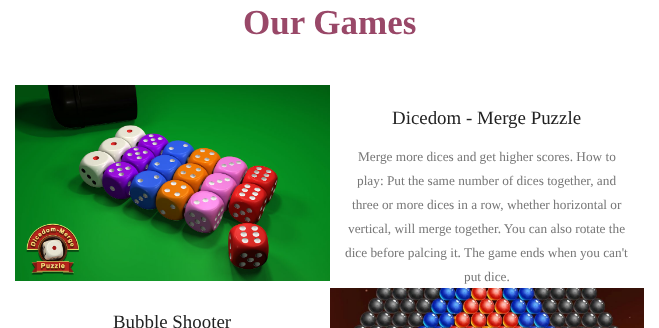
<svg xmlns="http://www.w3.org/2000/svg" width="659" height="328">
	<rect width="100%" height="100%" fill="#FFFFFF" />
	<text x="243" y="34" font-family="Liberation Serif" font-size="35" font-weight="700" fill="#994868">Our Games</text>
	<image x="15" y="85" width="315" height="196" href="assets/img1.png" />
	<text x="392" y="124" font-family="Liberation Serif" font-size="18.9" fill="#222222">Dicedom - Merge Puzzle</text>
	<g font-family="Liberation Serif" font-size="13.3" fill="#777777">
		<text x="358" y="161">Merge more dices and get higher scores. How to</text>
		<text x="357" y="185">play: Put the same number of dices together, and</text>
		<text x="352" y="209">three or more dices in a row, whether horizontal or</text>
		<text x="348" y="233">vertical, will merge together. You can also rotate the</text>
		<text x="345" y="257">dice before palcing it. The game ends when you can't</text>
		<text x="464" y="281">put dice.</text>
	</g>
	<text x="113" y="328" font-family="Liberation Serif" font-size="18.9" fill="#222222">Bubble Shooter</text>
	<image x="330" y="288" width="314" height="40" href="assets/img2.png" />
</svg>
